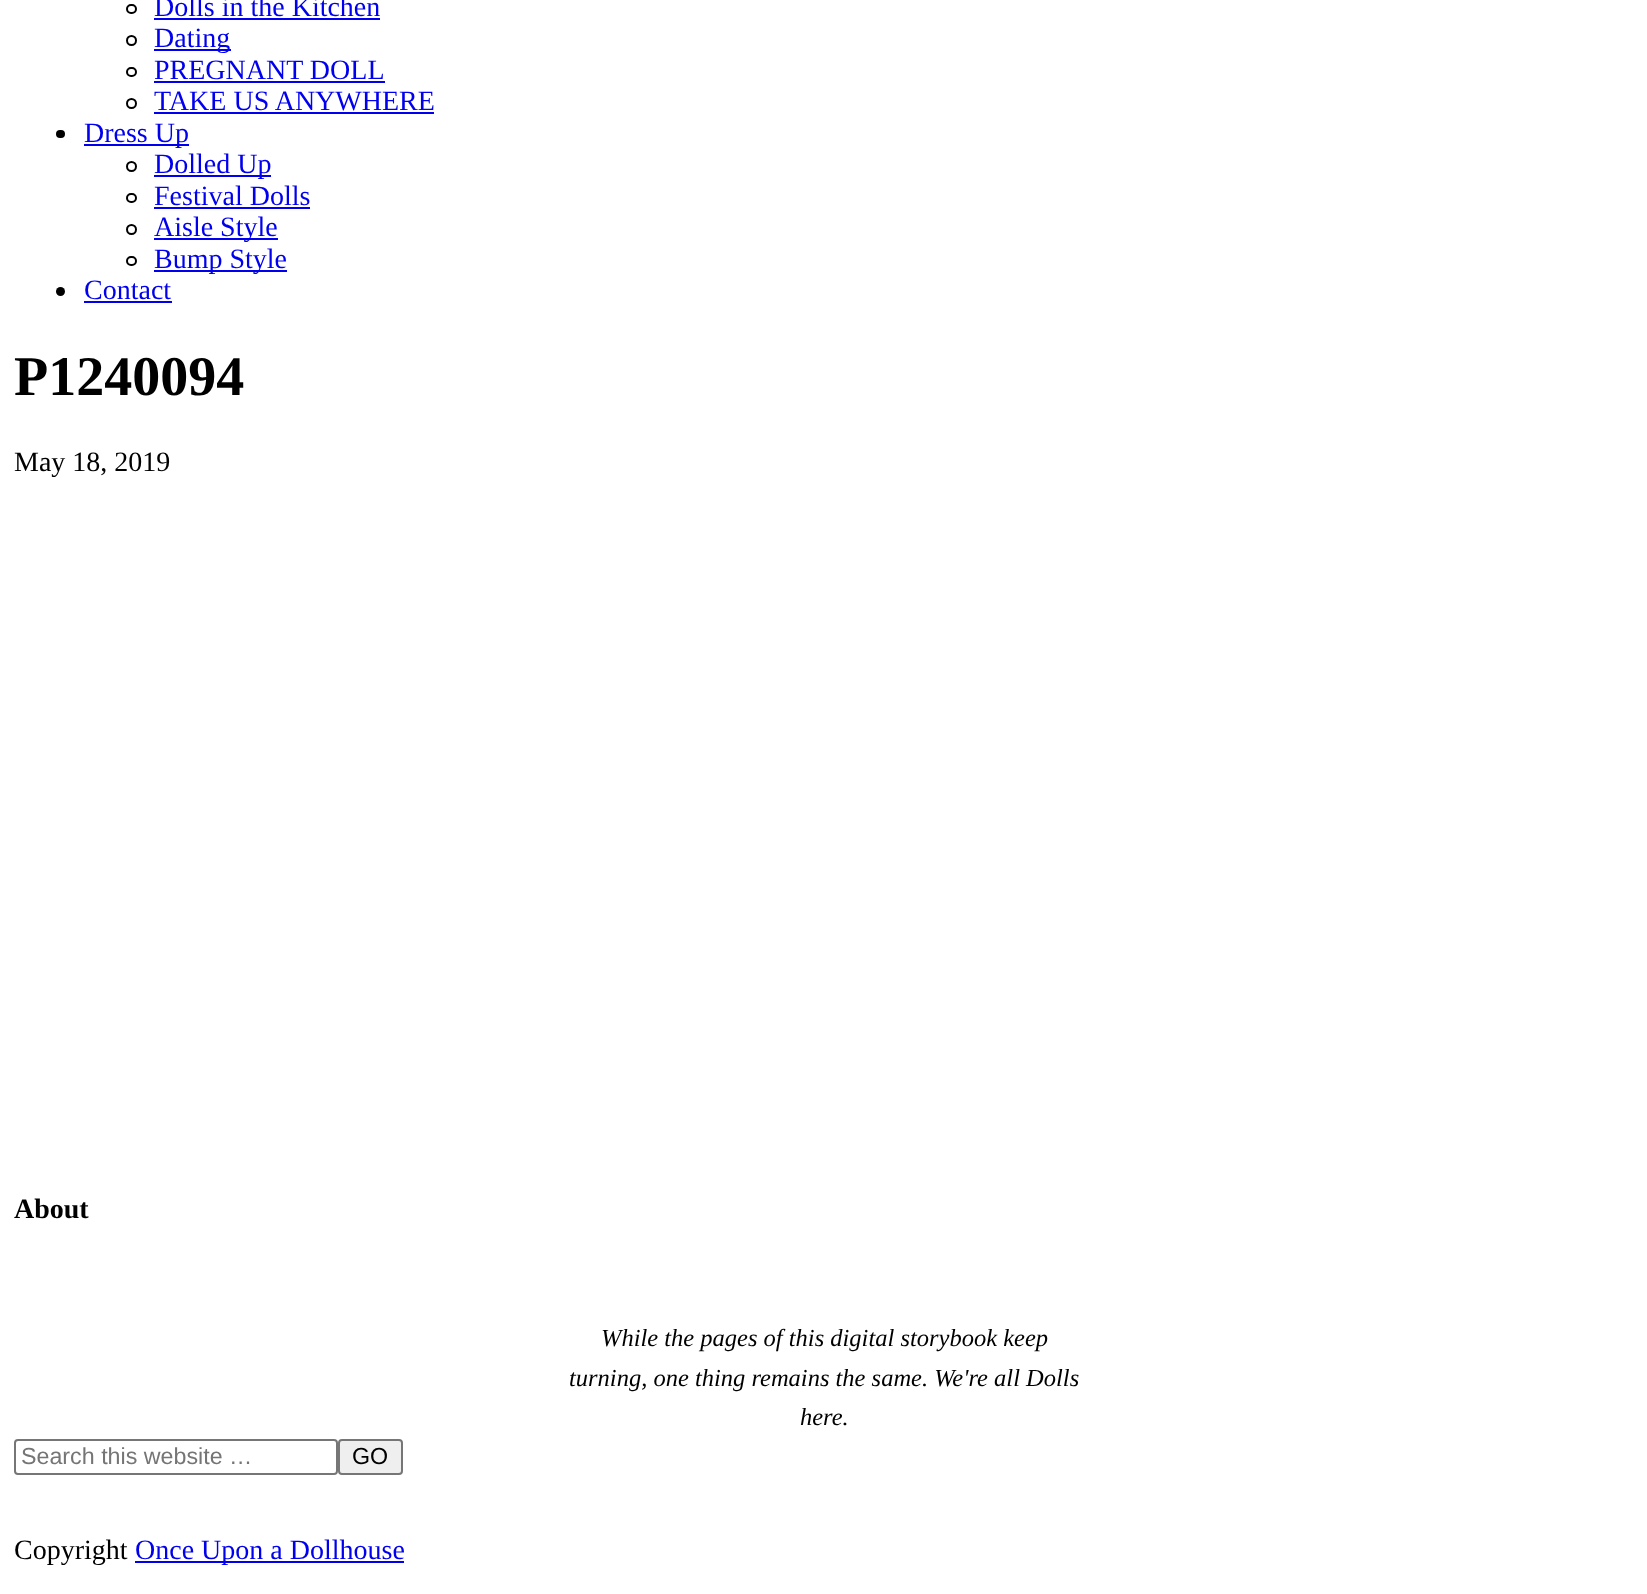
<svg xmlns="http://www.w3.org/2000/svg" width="1647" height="1594">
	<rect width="100%" height="100%" fill="#FFFFFF" />
	<rect x="127" y="5" width="9" height="8" rx="4" fill="none" stroke="#000000" stroke-width="2" />
	<text x="154" y="16" font-family="Liberation Serif" font-size="28" fill="#0000EE">Dolls in the Kitchen</text>
	<rect x="154" y="18" width="226" height="2" fill="#0000EE" />
	<circle cx="131.5" cy="40.5" r="4.5" fill="none" stroke="#000000" stroke-width="2" />
	<rect x="154" y="49" width="77" height="2" fill="#0000EE" />
	<text x="154" y="47" font-family="Liberation Serif" font-size="28" fill="#0000EE">Dating</text>
	<rect x="127" y="68" width="9" height="8" rx="4" fill="none" stroke="#000000" stroke-width="2" />
	<text x="154" y="79" font-family="Liberation Serif" font-size="28" fill="#0000EE">PREGNANT DOLL</text>
	<rect x="154" y="81" width="231" height="2" fill="#0000EE" />
	<circle cx="131.5" cy="103.5" r="4.5" fill="none" stroke="#000000" stroke-width="2" />
	<text x="154" y="110" font-family="Liberation Serif" font-size="28" fill="#0000EE">TAKE US ANYWHERE</text>
	<rect x="154" y="112" width="280" height="2" fill="#0000EE" />
	<rect x="56" y="130" width="9" height="8" rx="4" fill="#000000" />
	<rect x="84" y="144" width="105" height="2" fill="#0000EE" />
	<text x="84" y="142" font-family="Liberation Serif" font-size="28" fill="#0000EE">Dress Up</text>
	<circle cx="131.5" cy="166.5" r="4.5" fill="none" stroke="#000000" stroke-width="2" />
	<rect x="154" y="175" width="117" height="2" fill="#0000EE" />
	<text x="154" y="173" font-family="Liberation Serif" font-size="28" fill="#0000EE">Dolled Up</text>
	<rect x="127" y="194" width="9" height="8" rx="4" fill="none" stroke="#000000" stroke-width="2" />
	<text x="154" y="205" font-family="Liberation Serif" font-size="28" fill="#0000EE">Festival Dolls</text>
	<rect x="154" y="207" width="156" height="2" fill="#0000EE" />
	<circle cx="131.5" cy="229.5" r="4.5" fill="none" stroke="#000000" stroke-width="2" />
	<rect x="154" y="238" width="124" height="2" fill="#0000EE" />
	<text x="154" y="236" font-family="Liberation Serif" font-size="28" fill="#0000EE">Aisle Style</text>
	<rect x="127" y="257" width="9" height="8" rx="4" fill="none" stroke="#000000" stroke-width="2" />
	<rect x="154" y="270" width="133" height="2" fill="#0000EE" />
	<text x="154" y="268" font-family="Liberation Serif" font-size="28" fill="#0000EE">Bump Style</text>
	<circle cx="60.5" cy="291.5" r="4.5" fill="#000000" />
	<text x="84" y="299" font-family="Liberation Serif" font-size="28" fill="#0000EE">Contact</text>
	<rect x="84" y="301" width="88" height="2" fill="#0000EE" />
	<text x="14" y="395" font-family="Liberation Serif" font-size="56" font-weight="700" fill="#000000">P1240094</text>
	<text x="14" y="471" font-family="Liberation Serif" font-size="28" fill="#000000">May 18, 2019</text>
	<text x="14" y="1218" font-family="Liberation Serif" font-size="28" font-weight="700" fill="#000000">About</text>
	<g font-family="Liberation Serif" font-size="24.5" font-style="italic" fill="#000000">
		<text x="601" y="1346">While the pages of this digital storybook keep</text>
		<text x="569" y="1386">turning, one thing remains the same. We're all Dolls</text>
		<text x="800" y="1425">here.</text>
	</g>
	<rect x="15" y="1440" width="322" height="34" rx="3" fill="none" stroke="#767676" stroke-width="2" />
	<text x="21" y="1464" font-family="Liberation Sans" font-size="23.25" fill="#757575">Search this website …</text>
	<rect x="339" y="1440" width="63" height="34" rx="3" fill="#EFEFEF" stroke="#767676" stroke-width="2" />
	<text x="352" y="1464" font-family="Liberation Sans" font-size="23.25" fill="#000000">GO</text>
	<text x="14" y="1559" font-family="Liberation Serif" font-size="28" fill="#000000">Copyright</text>
	<rect x="135" y="1561" width="269" height="2" fill="#0000EE" />
	<text x="135" y="1559" font-family="Liberation Serif" font-size="28" fill="#0000EE">Once Upon a Dollhouse</text>
</svg>
